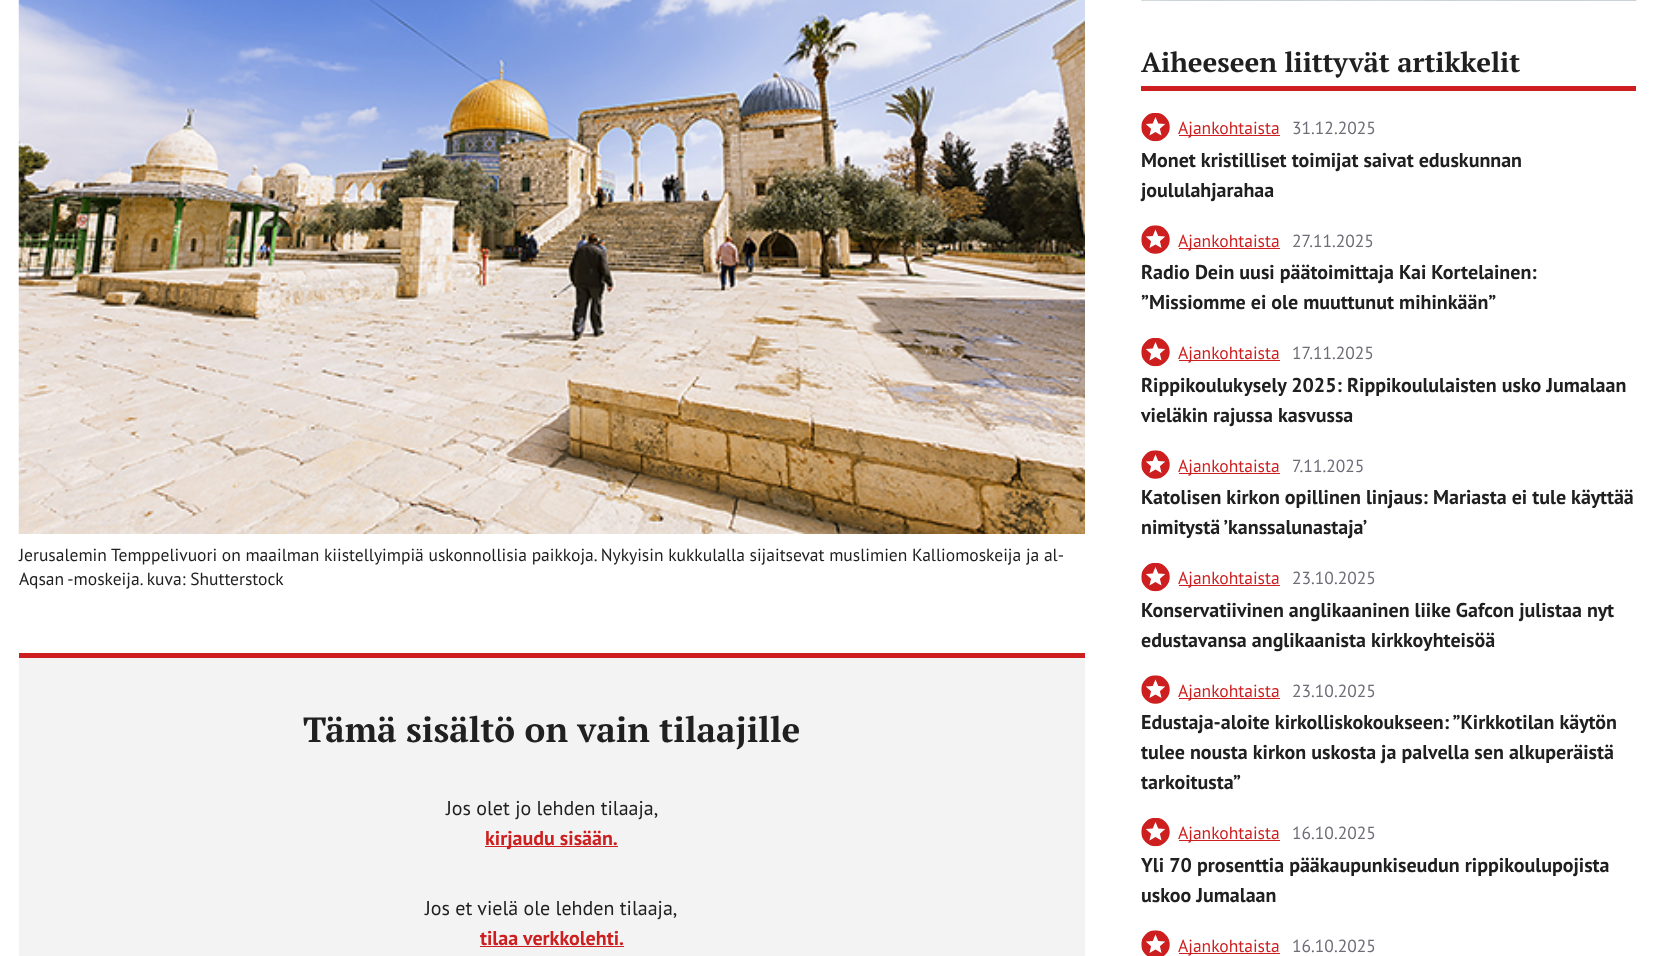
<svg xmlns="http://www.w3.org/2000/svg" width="1655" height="956">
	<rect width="100%" height="100%" fill="#FFFFFF" />
	<image x="18" y="0" width="1067" height="534" href="assets/img1.png" />
	<g font-family="PT Sans" font-size="17.5" fill="#202020">
		<text x="19" y="561">Jerusalemin Temppelivuori on maailman kiistellyimpiä uskonnollisia paikkoja. Nykyisin kukkulalla sijaitsevat muslimien Kalliomoskeija ja al-</text>
		<text x="19" y="585">Aqsan -moskeija. kuva: Shutterstock</text>
	</g>
	<rect x="19" y="658" width="1066" height="298" fill="#F3F3F3" />
	<rect x="19" y="653" width="1066" height="5" fill="#CD1F1F" />
	<text x="303" y="742" font-family="PT Serif" font-size="35" font-weight="700" fill="#202020">Tämä sisältö on vain tilaajille</text>
	<text x="446" y="815" font-family="PT Sans" font-size="20" fill="#202020">Jos olet jo lehden tilaaja,</text>
	<rect x="485" y="846" width="133" height="1" fill="#CD1F1F" />
	<text x="485" y="845" font-family="PT Sans" font-size="20" font-weight="700" fill="#CD1F1F">kirjaudu sisään.</text>
	<text x="425" y="915" font-family="PT Sans" font-size="20" fill="#202020">Jos et vielä ole lehden tilaaja,</text>
	<text x="480" y="945" font-family="PT Sans" font-size="20" font-weight="700" fill="#CD1F1F">tilaa</text>
	<rect x="480" y="946" width="144" height="1" fill="#CD1F1F" />
	<text x="523" y="945" font-family="PT Sans" font-size="20" font-weight="700" fill="#CD1F1F">verkkolehti.</text>
	<image x="1141" y="0" width="496" height="1" href="assets/img2.png" />
	<rect x="1141" y="86" width="495" height="5" fill="#CD1F1F" />
	<text x="1141" y="72" font-family="PT Serif" font-size="27.5" font-weight="700" fill="#202020">Aiheeseen liittyvät artikkelit</text>
	<image x="1141" y="113" width="29" height="29" href="assets/img3.png" />
	<rect x="1179" y="135" width="101" height="1" fill="#CD1F1F" />
	<text x="1178" y="134" font-family="PT Sans" font-size="17.5" fill="#CD1F1F">Ajankohtaista</text>
	<text x="1292" y="134" font-family="PT Sans" font-size="17.5" fill="#6D6D77">31.12.2025</text>
	<g font-family="PT Sans" font-size="20" font-weight="700" fill="#202020">
		<text x="1141" y="167">Monet kristilliset toimijat saivat eduskunnan</text>
		<text x="1141" y="197">joululahjarahaa</text>
	</g>
	<image x="1141" y="225" width="29" height="29" href="assets/img4.png" />
	<rect x="1179" y="248" width="101" height="1" fill="#CD1F1F" />
	<text x="1178" y="247" font-family="PT Sans" font-size="17.5" fill="#CD1F1F">Ajankohtaista</text>
	<text x="1292" y="247" font-family="PT Sans" font-size="17.5" fill="#6D6D77">27.11.2025</text>
	<g font-family="PT Sans" font-size="20" font-weight="700" fill="#202020">
		<text x="1141" y="279">Radio Dein uusi päätoimittaja Kai Kortelainen:</text>
		<text x="1141" y="309">”Missiomme ei ole muuttunut mihinkään”</text>
	</g>
	<image x="1141" y="338" width="29" height="29" href="assets/img3.png" />
	<rect x="1179" y="360" width="101" height="1" fill="#CD1F1F" />
	<text x="1178" y="359" font-family="PT Sans" font-size="17.5" fill="#CD1F1F">Ajankohtaista</text>
	<text x="1292" y="359" font-family="PT Sans" font-size="17.5" fill="#6D6D77">17.11.2025</text>
	<g font-family="PT Sans" font-size="20" font-weight="700" fill="#202020">
		<text x="1141" y="392">Rippikoulukysely 2025: Rippikoululaisten usko Jumalaan</text>
		<text x="1141" y="422">vieläkin rajussa kasvussa</text>
	</g>
	<image x="1141" y="450" width="29" height="29" href="assets/img4.png" />
	<rect x="1179" y="473" width="101" height="1" fill="#CD1F1F" />
	<text x="1178" y="472" font-family="PT Sans" font-size="17.5" fill="#CD1F1F">Ajankohtaista</text>
	<text x="1292" y="472" font-family="PT Sans" font-size="17.5" fill="#6D6D77">7.11.2025</text>
	<g font-family="PT Sans" font-size="20" font-weight="700" fill="#202020">
		<text x="1141" y="504">Katolisen kirkon opillinen linjaus: Mariasta ei tule käyttää</text>
		<text x="1141" y="534">nimitystä ’kanssalunastaja’</text>
	</g>
	<image x="1141" y="563" width="29" height="29" href="assets/img3.png" />
	<rect x="1179" y="585" width="101" height="1" fill="#CD1F1F" />
	<text x="1178" y="584" font-family="PT Sans" font-size="17.5" fill="#CD1F1F">Ajankohtaista</text>
	<text x="1292" y="584" font-family="PT Sans" font-size="17.5" fill="#6D6D77">23.10.2025</text>
	<g font-family="PT Sans" font-size="20" font-weight="700" fill="#202020">
		<text x="1141" y="617">Konservatiivinen anglikaaninen liike Gafcon julistaa nyt</text>
		<text x="1141" y="647">edustavansa anglikaanista kirkkoyhteisöä</text>
	</g>
	<image x="1141" y="675" width="29" height="29" href="assets/img4.png" />
	<rect x="1179" y="698" width="101" height="1" fill="#CD1F1F" />
	<text x="1178" y="697" font-family="PT Sans" font-size="17.5" fill="#CD1F1F">Ajankohtaista</text>
	<text x="1292" y="697" font-family="PT Sans" font-size="17.5" fill="#6D6D77">23.10.2025</text>
	<g font-family="PT Sans" font-size="20" font-weight="700" fill="#202020">
		<text x="1141" y="729">Edustaja-aloite kirkolliskokoukseen: ”Kirkkotilan käytön</text>
		<text x="1141" y="759">tulee nousta kirkon uskosta ja palvella sen alkuperäistä</text>
		<text x="1141" y="789">tarkoitusta”</text>
	</g>
	<image x="1141" y="818" width="29" height="29" href="assets/img3.png" />
	<rect x="1179" y="840" width="101" height="1" fill="#CD1F1F" />
	<text x="1178" y="839" font-family="PT Sans" font-size="17.5" fill="#CD1F1F">Ajankohtaista</text>
	<text x="1292" y="839" font-family="PT Sans" font-size="17.5" fill="#6D6D77">16.10.2025</text>
	<g font-family="PT Sans" font-size="20" font-weight="700" fill="#202020">
		<text x="1141" y="872">Yli 70 prosenttia pääkaupunkiseudun rippikoulupojista</text>
		<text x="1141" y="902">uskoo Jumalaan</text>
	</g>
	<image x="1141" y="930" width="29" height="26" href="assets/img5.png" />
	<rect x="1179" y="953" width="101" height="1" fill="#CD1F1F" />
	<text x="1178" y="952" font-family="PT Sans" font-size="17.5" fill="#CD1F1F">Ajankohtaista</text>
	<text x="1292" y="952" font-family="PT Sans" font-size="17.5" fill="#6D6D77">16.10.2025</text>
</svg>
